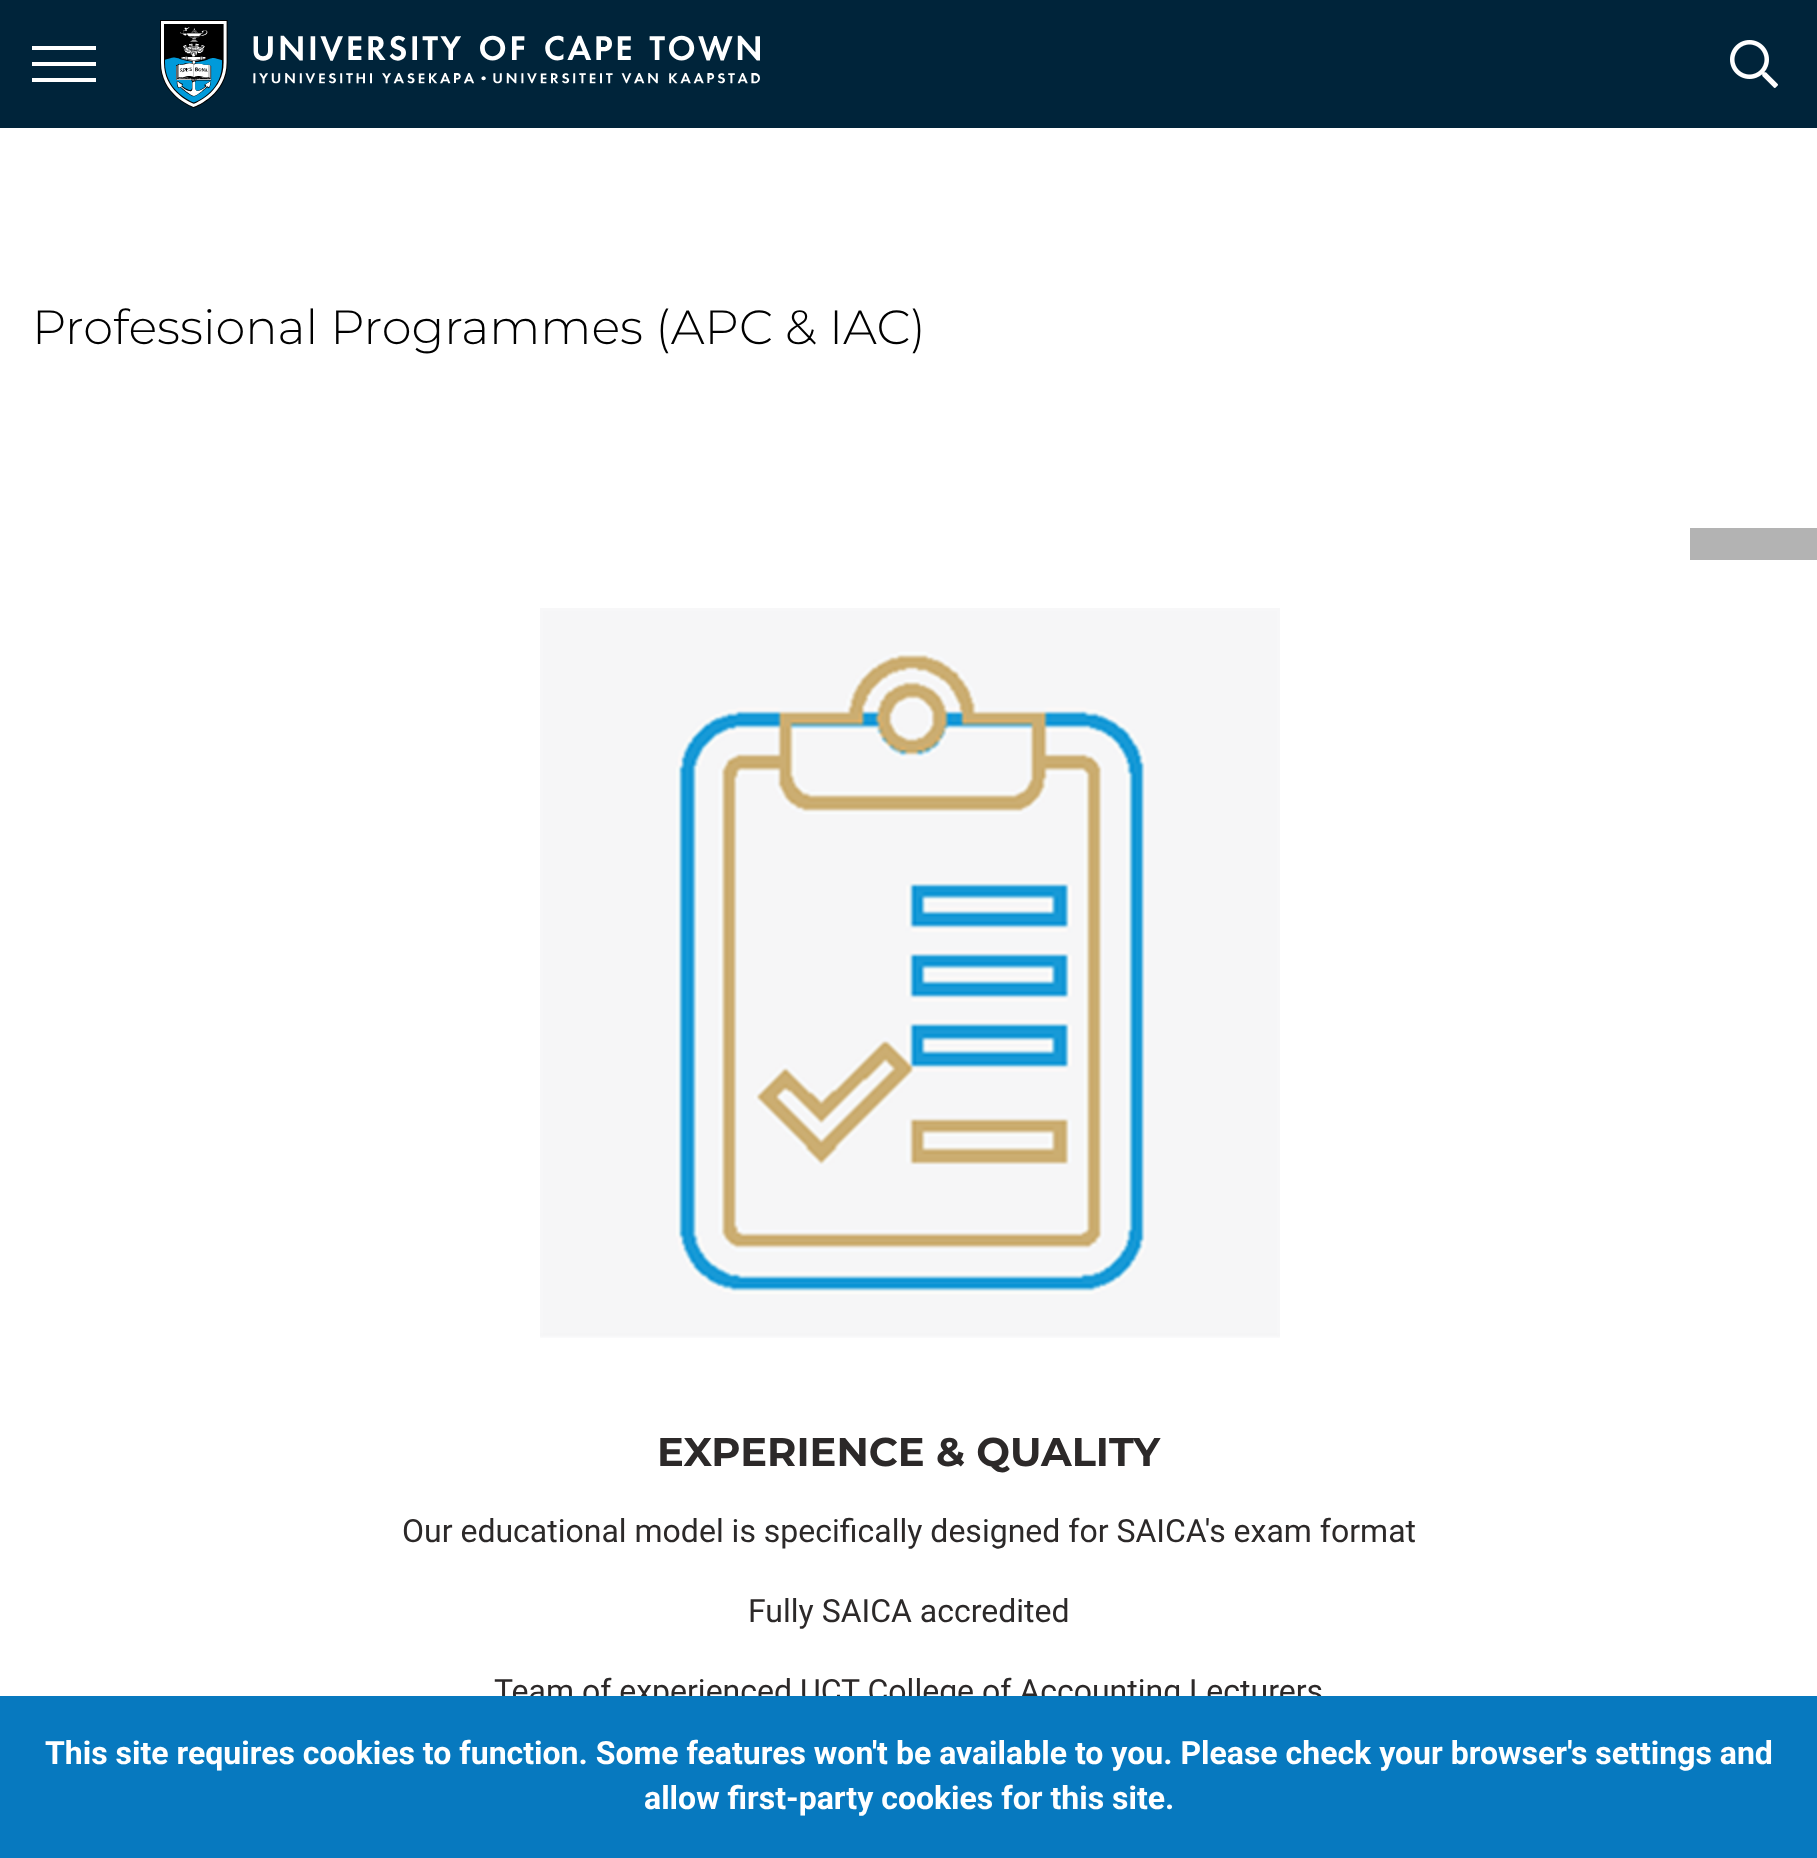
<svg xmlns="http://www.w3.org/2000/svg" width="1817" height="1858">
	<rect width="100%" height="100%" fill="#FFFFFF" />
	<rect x="0" y="0" width="1817" height="128" fill="#00243A" />
	<rect x="32" y="46" width="64" height="4" fill="#FFFFFF" />
	<rect x="32" y="62" width="64" height="4" fill="#FFFFFF" />
	<rect x="32" y="78" width="64" height="4" fill="#FFFFFF" />
	<image x="160" y="20" width="600" height="88" href="assets/img1.png" />
	<image x="1730" y="40" width="48" height="48" href="assets/img2.png" />
	<text x="32" y="344" font-family="Montserrat" font-size="48" font-weight="300" fill="#000000">Professional Programmes (APC &amp; IAC)</text>
	<rect x="1690" y="528" width="127" height="32" fill="#B3B3B3" />
	<image x="540" y="608" width="740" height="730" href="assets/img3.png" />
	<text x="657" y="1466" font-family="Montserrat" font-size="40" font-weight="700" fill="#2C2929">EXPERIENCE &amp; QUALITY</text>
	<g font-family="Roboto" font-size="32" fill="#2C2929">
		<text x="402" y="1542">Our educational model is specifically designed for SAICA's exam format</text>
		<text x="748" y="1622">Fully SAICA accredited</text>
		<text x="494" y="1702">Team of experienced UCT College of Accounting Lecturers</text>
	</g>
	<rect x="0" y="1696" width="1817" height="162" fill="#0779BF" />
	<g font-family="Roboto" font-size="32" font-weight="700" fill="#FFFFFF">
		<text x="45" y="1764">This site requires cookies to function. Some features won't be available to you. Please check your browser's settings and</text>
		<text x="644" y="1809">allow first-party cookies for this site.</text>
	</g>
</svg>
